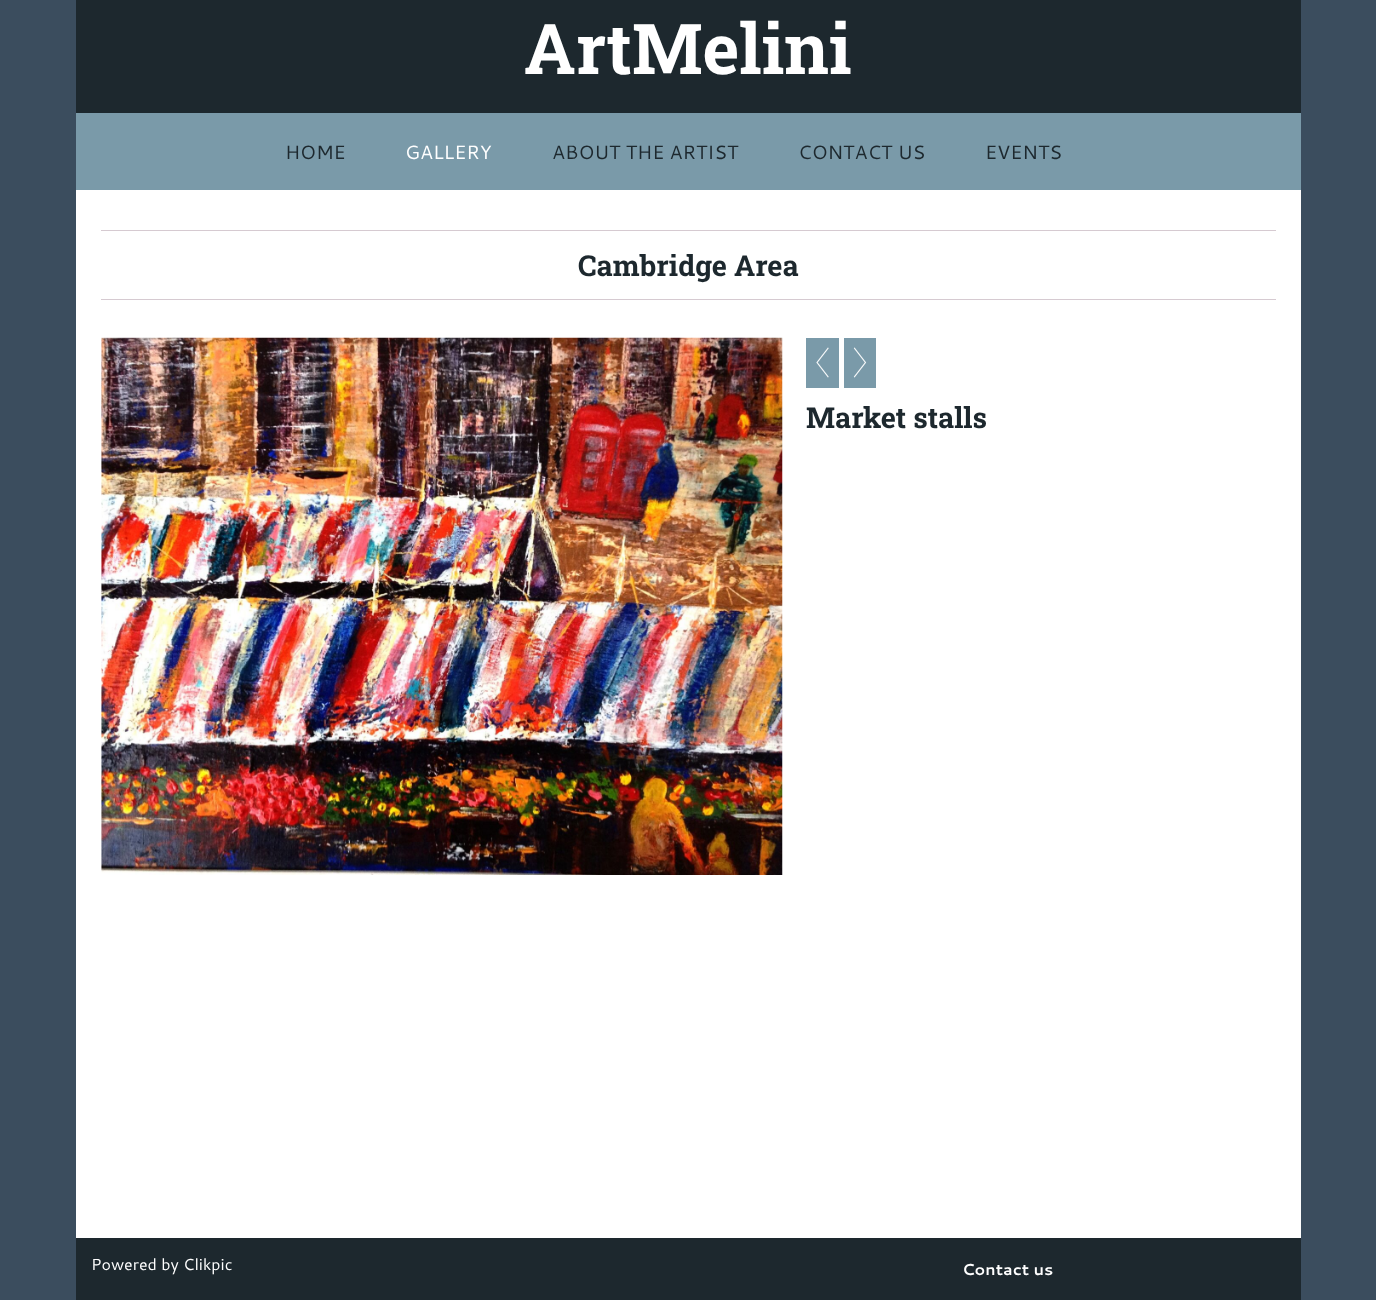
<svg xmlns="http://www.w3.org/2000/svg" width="1376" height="1300">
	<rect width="100%" height="100%" fill="#3B4D5E" />
	<rect x="76" y="190" width="1225" height="1048" fill="#FFFFFF" />
	<rect x="76" y="0" width="1225" height="113" fill="#1D282E" />
	<text x="524" y="74" font-family="Roboto Slab" font-size="70" font-weight="700" fill="#FFFFFF">ArtMelini</text>
	<rect x="76" y="113" width="1225" height="77" fill="#7A9AA9" />
	<text x="285" y="159" font-family="Cantarell" font-size="19.25" fill="#1D282E">HOME</text>
	<text x="405" y="159" font-family="Cantarell" font-size="19.25" fill="#FFFFFF">GALLERY</text>
	<g font-family="Cantarell" font-size="19.25" fill="#1D282E">
		<text x="552" y="159">ABOUT THE ARTIST</text>
		<text x="798" y="159">CONTACT US</text>
		<text x="985" y="159">EVENTS</text>
	</g>
	<rect x="101" y="230" width="1175" height="1" fill="#D6CAD1" />
	<rect x="101" y="299" width="1175" height="1" fill="#D6CAD1" />
	<text x="578" y="276" font-family="Roboto Slab" font-size="28.75" font-weight="700" fill="#1D282E">Cambridge Area</text>
	<image x="101" y="337" width="682" height="538" href="assets/img1.png" />
	<rect x="806" y="338" width="33" height="50" fill="#7A9AA9" />
	<image x="816" y="347" width="13" height="31" href="assets/img2.png" />
	<rect x="844" y="338" width="32" height="50" fill="#7A9AA9" />
	<image x="853" y="347" width="14" height="31" href="assets/img3.png" />
	<text x="806" y="428" font-family="Roboto Slab" font-size="28.75" font-weight="700" fill="#1D282E">Market stalls</text>
	<rect x="76" y="1238" width="1225" height="62" fill="#1D282E" />
	<text x="91" y="1270" font-family="Cantarell" font-size="16" fill="#FFFFFF">Powered by Clikpic</text>
	<text x="962" y="1275" font-family="Cantarell" font-size="16" font-weight="700" fill="#FFFFFF">Contact us</text>
</svg>
